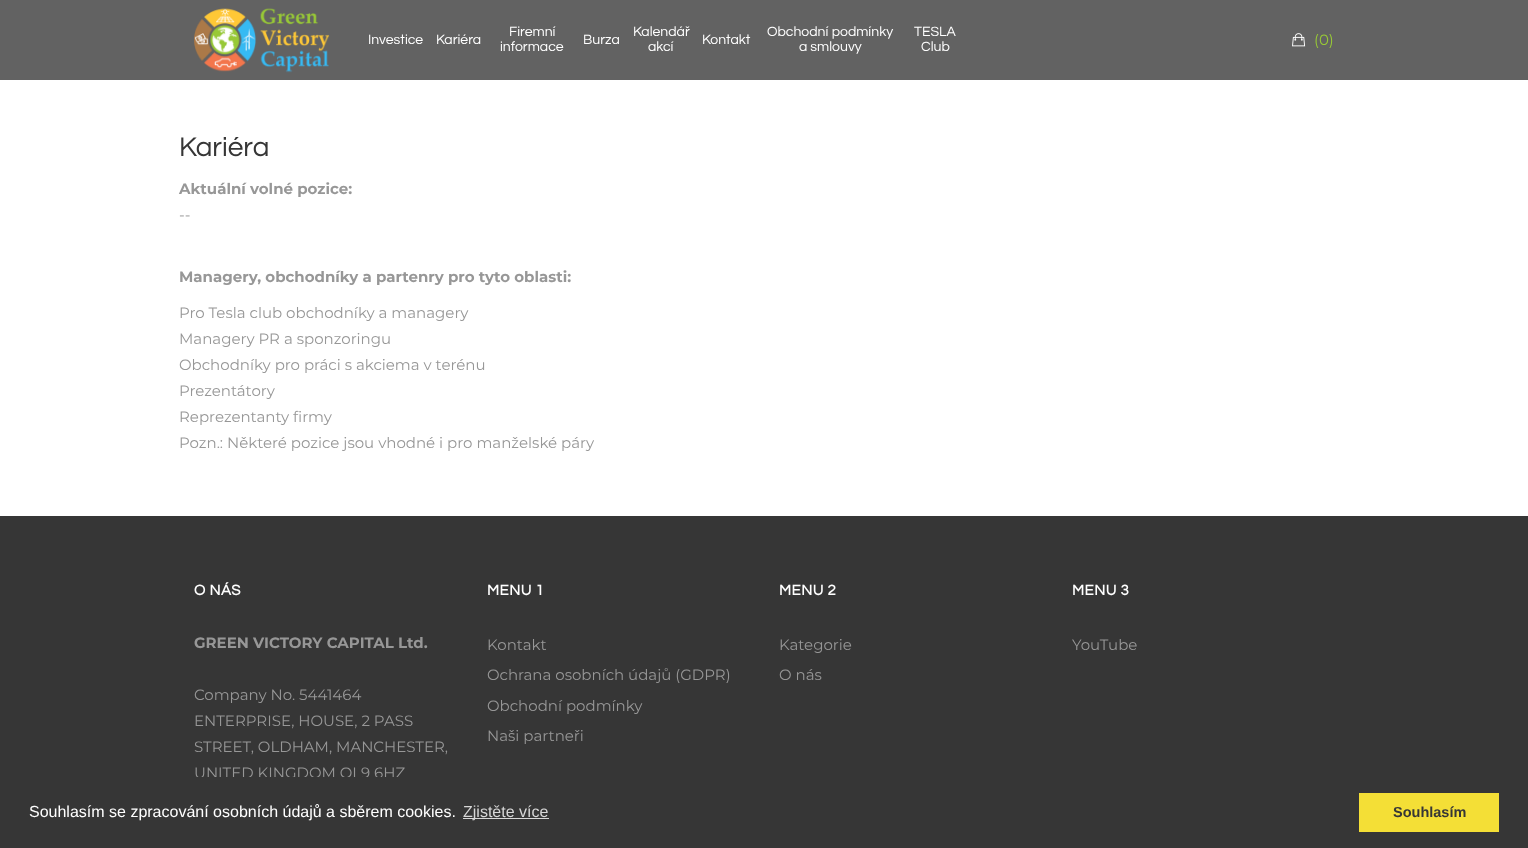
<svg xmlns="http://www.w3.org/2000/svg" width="1528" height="848">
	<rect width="100%" height="100%" fill="#FFFFFF" />
	<rect x="0" y="0" width="1528" height="80" fill="#626262" />
	<image x="194" y="8" width="136" height="65" href="assets/img1.png" />
	<g font-family="Questrial" font-size="14" fill="#FFFFFF">
		<text x="368" y="44">Investice</text>
		<text x="436" y="44">Kariéra</text>
		<text x="509" y="36">Firemní</text>
		<text x="500" y="51">informace</text>
		<text x="583" y="44">Burza</text>
		<text x="633" y="36">Kalendář</text>
		<text x="648" y="51">akcí</text>
		<text x="702" y="44">Kontakt</text>
		<text x="767" y="36">Obchodní podmínky</text>
		<text x="799" y="51">a smlouvy</text>
		<text x="914" y="36">TESLA</text>
		<text x="921" y="51">Club</text>
	</g>
	<image x="1292" y="33" width="14" height="14" href="assets/img2.png" />
	<text x="1314" y="45" font-family="Montserrat" font-size="15" fill="#98C936">(0)</text>
	<text x="179" y="156" font-family="Questrial" font-size="28" fill="#363636">Kariéra</text>
	<text x="179" y="194" font-family="Montserrat" font-size="15" font-weight="700" fill="#979797">Aktuální volné pozice:</text>
	<text x="179" y="220" font-family="Montserrat" font-size="15" fill="#979797">--</text>
	<text x="179" y="282" font-family="Montserrat" font-size="15" font-weight="700" fill="#979797">Managery, obchodníky a partenry pro tyto oblasti:</text>
	<g font-family="Montserrat" font-size="15" fill="#979797">
		<text x="179" y="318">Pro Tesla club obchodníky a managery</text>
		<text x="179" y="344">Managery PR a sponzoringu</text>
		<text x="179" y="370">Obchodníky pro práci s akciema v terénu</text>
		<text x="179" y="396">Prezentátory</text>
		<text x="179" y="422">Reprezentanty firmy</text>
		<text x="179" y="448">Pozn.: Některé pozice jsou vhodné i pro manželské páry</text>
	</g>
	<rect x="0" y="516" width="1528" height="261" fill="#363636" />
	<text x="194" y="595" font-family="Questrial" font-size="15" font-weight="700" letter-spacing="0.5" fill="#FFFFFF">O NÁS</text>
	<text x="194" y="648" font-family="Montserrat" font-size="15" font-weight="700" fill="#979797">GREEN VICTORY CAPITAL Ltd.</text>
	<g font-family="Montserrat" font-size="15" fill="#979797">
		<text x="194" y="700">Company No. 5441464</text>
		<text x="194" y="726">ENTERPRISE, HOUSE, 2 PASS</text>
		<text x="194" y="752">STREET, OLDHAM, MANCHESTER,</text>
		<text x="194" y="778">UNITED KINGDOM OL9 6HZ</text>
	</g>
	<text x="487" y="595" font-family="Questrial" font-size="15" font-weight="700" letter-spacing="0.5" fill="#FFFFFF">MENU 1</text>
	<g font-family="Montserrat" font-size="15" fill="#979797">
		<text x="487" y="650">Kontakt</text>
		<text x="487" y="680">Ochrana osobních údajů (GDPR)</text>
		<text x="487" y="711">Obchodní podmínky</text>
		<text x="487" y="741">Naši partneři</text>
	</g>
	<text x="779" y="595" font-family="Questrial" font-size="15" font-weight="700" letter-spacing="0.5" fill="#FFFFFF">MENU 2</text>
	<g font-family="Montserrat" font-size="15" fill="#979797">
		<text x="779" y="650">Kategorie</text>
		<text x="779" y="680">O nás</text>
	</g>
	<text x="1072" y="595" font-family="Questrial" font-size="15" font-weight="700" letter-spacing="0.5" fill="#FFFFFF">MENU 3</text>
	<text x="1072" y="650" font-family="Montserrat" font-size="15" fill="#979797">YouTube</text>
	<rect x="0" y="777" width="1528" height="71" fill="#363636" />
	<text x="29" y="817" font-family="Liberation Sans" font-size="16" fill="#FFFFFF">Souhlasím se zpracování osobních údajů a sběrem cookies.</text>
	<rect x="463" y="818" width="86" height="1" fill="#D7D7D7" />
	<text x="463" y="817" font-family="Liberation Sans" font-size="16" fill="#D7D7D7">Zjistěte více</text>
	<rect x="1359" y="793" width="140" height="39" fill="#F4DF36" />
	<text x="1393" y="817" font-family="Liberation Sans" font-size="14.5" font-weight="700" fill="#363636">Souhlasím</text>
</svg>
